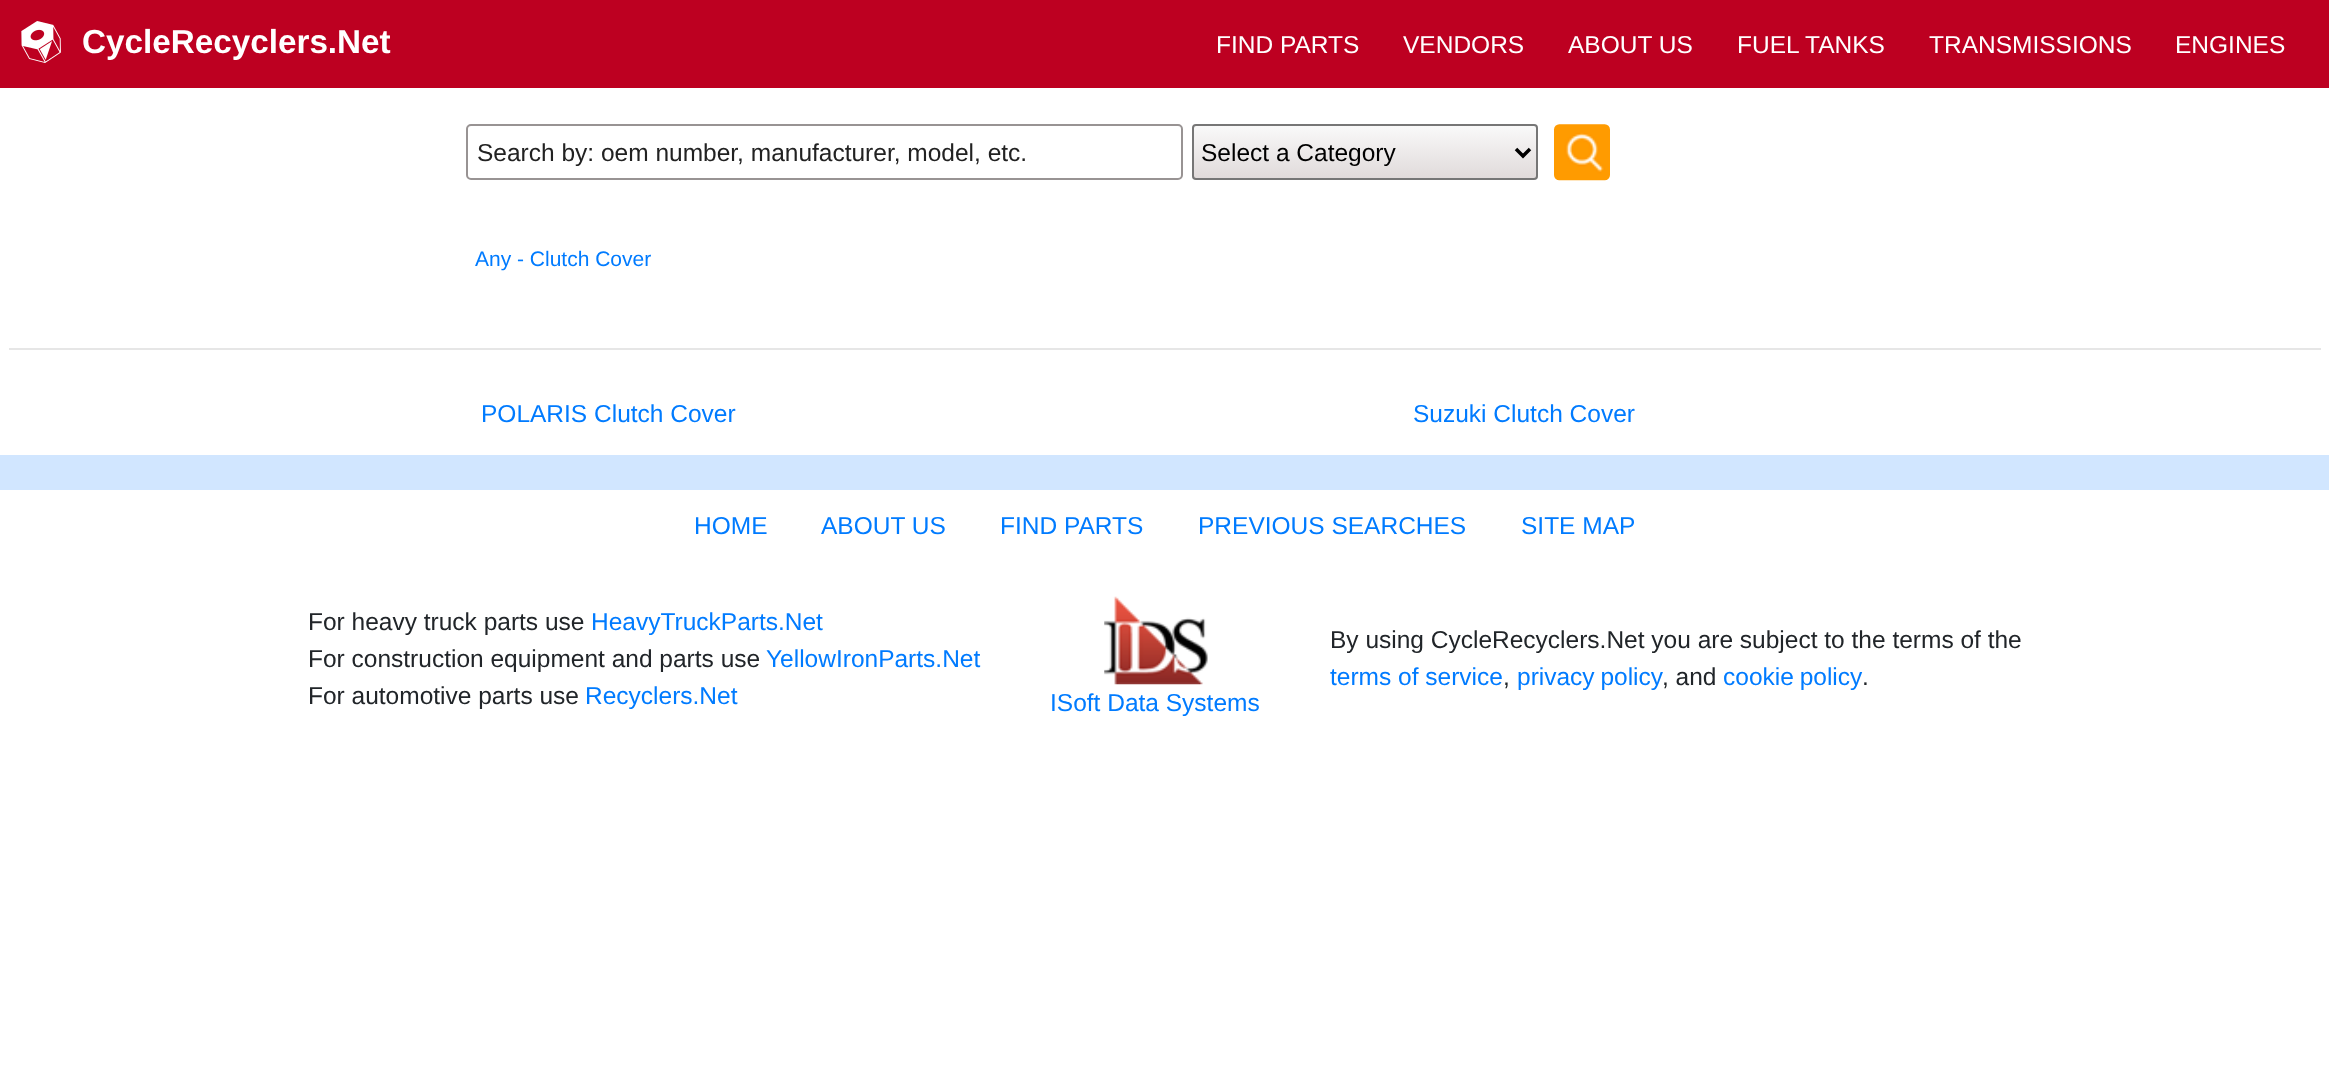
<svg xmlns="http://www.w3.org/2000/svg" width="2329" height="1071">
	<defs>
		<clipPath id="clip1"><rect x="1192" y="124" width="346" height="56" rx="4" /></clipPath>
		<linearGradient id="g1" gradientUnits="userSpaceOnUse" x1="1365" y1="126" x2="1365" y2="179"><stop offset="0" stop-color="#F9F9F9" /><stop offset="1" stop-color="#E0DADA" /></linearGradient>
	</defs>
	<rect width="100%" height="100%" fill="#FFFFFF" />
	<rect x="0" y="0" width="2329" height="88" fill="#BD0021" />
	<image x="21" y="21" width="40" height="42" href="assets/img1.png" />
	<text x="82" y="53" font-family="Liberation Sans" font-size="33.25" font-weight="700" fill="#FFFFFF">CycleRecyclers.Net</text>
	<g font-family="Liberation Sans" font-size="24.5" fill="#FFFFFF">
		<text x="1216" y="53">FIND PARTS</text>
		<text x="1403" y="53">VENDORS</text>
		<text x="1568" y="53">ABOUT US</text>
		<text x="1737" y="53">FUEL TANKS</text>
		<text x="1929" y="53">TRANSMISSIONS</text>
		<text x="2175" y="53">ENGINES</text>
	</g>
	<rect x="467" y="125" width="715" height="54" rx="4" fill="none" stroke="#989393" stroke-width="2" />
	<text x="477" y="161" font-family="Liberation Sans" font-size="24.5" fill="#222222">Search by: oem number, manufacturer, model, etc.</text>
	<g clip-path="url(#clip1)">
		<rect x="1192" y="126" width="346" height="53" fill="url(#g1)" />
	</g>
	<rect x="1193" y="125" width="344" height="54" rx="3" fill="none" stroke="#767676" stroke-width="2" />
	<path d="M1516 149L1523 156L1530 149" fill="none" stroke="#000000" stroke-width="3.5" />
	<text x="1201" y="161" font-family="Liberation Sans" font-size="24.5" fill="#000000">Select a Category</text>
	<image x="1553" y="124" width="57" height="57" href="assets/img2.png" />
	<text x="475" y="266" font-family="Liberation Sans" font-size="21" fill="#007BFF">Any - Clutch Cover</text>
	<rect x="9" y="348" width="2312" height="2" fill="#E6E6E6" />
	<g font-family="Liberation Sans" font-size="24.5" fill="#007BFF">
		<text x="481" y="422">POLARIS Clutch Cover</text>
		<text x="1413" y="422">Suzuki Clutch Cover</text>
	</g>
	<rect x="0" y="455" width="2329" height="35" fill="#D1E6FF" />
	<g font-family="Liberation Sans" font-size="24.5" fill="#007BFF">
		<text x="694" y="534">HOME</text>
		<text x="821" y="534">ABOUT US</text>
		<text x="1000" y="534">FIND PARTS</text>
		<text x="1198" y="534">PREVIOUS SEARCHES</text>
		<text x="1521" y="534">SITE MAP</text>
	</g>
	<text x="308" y="630" font-family="Liberation Sans" font-size="24.5" fill="#212529">For heavy truck parts use</text>
	<text x="591" y="630" font-family="Liberation Sans" font-size="24.5" fill="#007BFF">HeavyTruckParts.Net</text>
	<text x="308" y="667" font-family="Liberation Sans" font-size="24.5" fill="#212529">For construction equipment and parts use</text>
	<text x="766" y="667" font-family="Liberation Sans" font-size="24.5" fill="#007BFF">YellowIronParts.Net</text>
	<text x="308" y="704" font-family="Liberation Sans" font-size="24.5" fill="#212529">For automotive parts use</text>
	<text x="585" y="704" font-family="Liberation Sans" font-size="24.5" fill="#007BFF">Recyclers.Net</text>
	<text x="1330" y="648" font-family="Liberation Sans" font-size="24.5" fill="#212529">By using CycleRecyclers.Net you are subject to the terms of the</text>
	<text x="1330" y="685" font-family="Liberation Sans" font-size="24.5" fill="#007BFF">terms of service</text>
	<text x="1503" y="685" font-family="Liberation Sans" font-size="24.5" fill="#212529">,</text>
	<text x="1517" y="685" word-spacing="-1" font-family="Liberation Sans" font-size="24.5" fill="#007BFF">privacy policy</text>
	<text x="1662" y="685" font-family="Liberation Sans" font-size="24.5" fill="#212529">, and</text>
	<text x="1723" y="685" word-spacing="-1" font-family="Liberation Sans" font-size="24.5" fill="#007BFF">cookie policy</text>
	<text x="1862" y="685" font-family="Liberation Sans" font-size="24.5" fill="#212529">.</text>
	<image x="1104" y="596" width="104" height="89" href="assets/img3.png" />
	<text x="1050" y="711" font-family="Liberation Sans" font-size="24.5" fill="#007BFF">ISoft Data Systems</text>
</svg>
